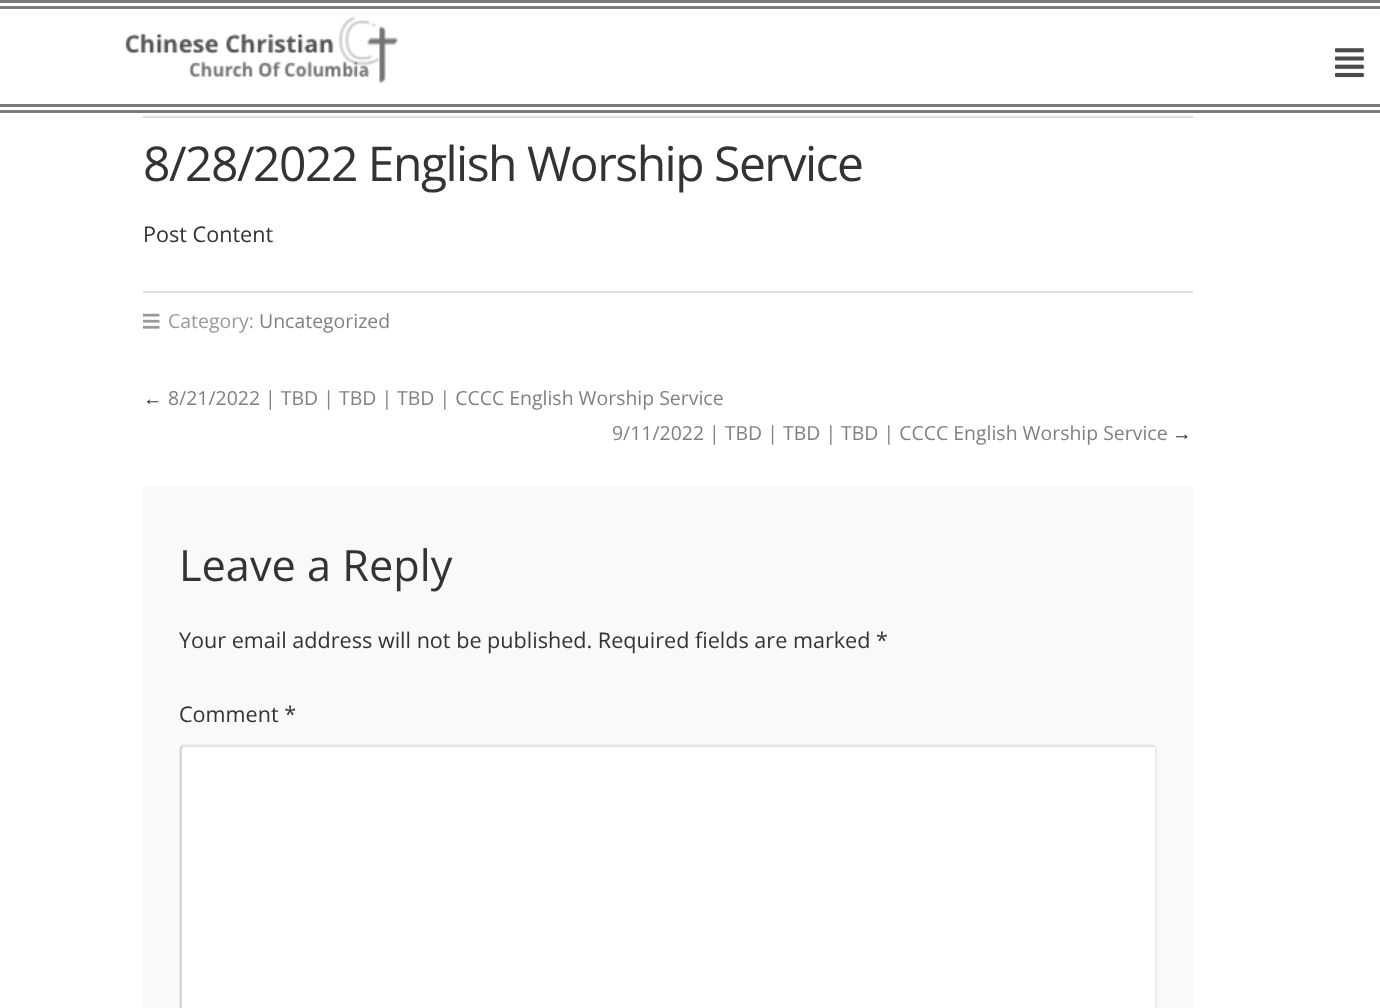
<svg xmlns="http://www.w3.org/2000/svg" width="1380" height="1008">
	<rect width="100%" height="100%" fill="#FFFFFF" />
	<rect x="0" y="0" width="1380" height="3" fill="#7A7A7A" />
	<rect x="0" y="6" width="1380" height="3" fill="#7A7A7A" />
	<rect x="0" y="104" width="1380" height="3" fill="#7A7A7A" />
	<rect x="0" y="110" width="1380" height="3" fill="#7A7A7A" />
	<image x="125" y="16" width="273" height="68" href="assets/img1.png" />
	<image x="1335" y="48" width="29" height="30" href="assets/img2.png" />
	<rect x="143" y="116" width="1050" height="2" fill="#E0E0E0" />
	<text x="143" y="181" font-family="Open Sans" font-size="48" letter-spacing="-1.5" fill="#333333">8/28/2022 English Worship Service</text>
	<text x="143" y="242" font-family="Open Sans" font-size="21.6" fill="#333333">Post Content</text>
	<rect x="143" y="291" width="1050" height="2" fill="#E0E0E0" />
	<image x="143" y="313" width="17" height="16" href="assets/img3.png" />
	<text x="168" y="328" font-family="Open Sans" font-size="19.45" fill="#999999">Category:</text>
	<text x="259" y="328" font-family="Open Sans" font-size="19.45" fill="#808080">Uncategorized</text>
	<text x="143" y="405" font-family="Liberation Serif" font-size="19.45" fill="#333333">←</text>
	<g font-family="Open Sans" font-size="19.45" fill="#808080">
		<text x="168" y="405">8/21/2022 | TBD | TBD | TBD | CCCC English Worship Service</text>
		<text x="612" y="440">9/11/2022 | TBD | TBD | TBD | CCCC English Worship Service</text>
	</g>
	<text x="1172" y="440" font-family="Liberation Serif" font-size="19.45" fill="#333333">→</text>
	<rect x="143" y="486" width="1050" height="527" rx="5" fill="#F9F9F9" />
	<text x="179" y="581" font-family="Open Sans" font-size="43.25" fill="#333333">Leave a Reply</text>
	<g font-family="Open Sans" font-size="21.6" fill="#333333">
		<text x="179" y="648">Your email address will not be published. Required fields are marked *</text>
		<text x="179" y="722">Comment *</text>
	</g>
	<rect x="179" y="744" width="978" height="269" rx="5" fill="#FFFFFF" />
	<path d="M184 747H1154C1154 746 1153 746 1152 746H183C181 746 180 747 180 749V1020C180 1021 181 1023 182 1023V750C182 749 183 747 184 747Z" fill="#DDDDDD" />
	<rect x="180" y="745" width="976" height="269" rx="4" fill="none" stroke="#000000" stroke-opacity="0.08" stroke-width="2" />
</svg>
